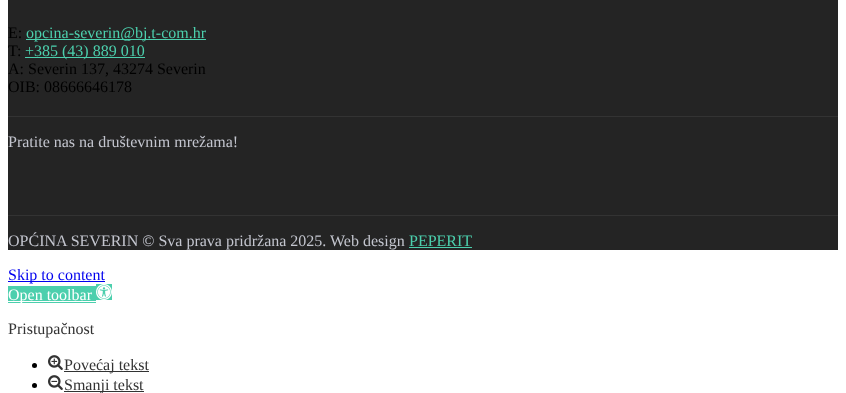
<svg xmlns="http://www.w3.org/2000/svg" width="846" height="393">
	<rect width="100%" height="100%" fill="#FFFFFF" />
	<rect x="8" y="0" width="830" height="250" fill="#242424" />
	<text x="8" y="38" font-family="Liberation Serif" font-size="16" fill="#000000">E:</text>
	<rect x="26" y="39" width="180" height="1" fill="#4CCFAD" />
	<text x="26" y="38" font-family="Liberation Serif" font-size="16" fill="#4CCFAD">opcina-severin@bj.t-com.hr</text>
	<text x="8" y="56" font-family="Liberation Serif" font-size="16" fill="#000000">T:</text>
	<rect x="25" y="57" width="120" height="1" fill="#4CCFAD" />
	<text x="25" y="56" font-family="Liberation Serif" font-size="16" fill="#4CCFAD">+385 (43) 889 010</text>
	<g font-family="Liberation Serif" font-size="16" fill="#000000">
		<text x="8" y="74">A: Severin 137, 43274 Severin</text>
		<text x="8" y="92">OIB: 08666646178</text>
	</g>
	<rect x="8" y="116" width="830" height="1" fill="#333333" />
	<text x="8" y="147" font-family="Liberation Serif" font-size="16" fill="#C3C5CE">Pratite nas na društevnim mrežama!</text>
	<rect x="8" y="215" width="830" height="1" fill="#333333" />
	<text x="8" y="246" font-family="Liberation Serif" font-size="16" fill="#C3C5CE">OPĆINA SEVERIN © Sva prava pridržana 2025. Web design</text>
	<text x="409" y="246" font-family="Liberation Serif" font-size="16" fill="#4CCFAD">PEPERIT</text>
	<rect x="409" y="247" width="63" height="1" fill="#4CCFAD" />
	<rect x="8" y="281" width="97" height="1" fill="#0000EE" />
	<text x="8" y="280" font-family="Liberation Serif" font-size="16" fill="#0000EE">Skip to content</text>
	<rect x="8" y="286" width="88" height="17" fill="#4CCFAD" />
	<rect x="8" y="301" width="88" height="1" fill="#FFFFFF" />
	<text x="8" y="300" font-family="Liberation Serif" font-size="16" fill="#FFFFFF">Open toolbar</text>
	<rect x="96" y="284" width="16" height="16" fill="#4CCFAD" />
	<image x="96" y="284" width="16" height="16" href="assets/img1.png" />
	<text x="8" y="334" font-family="Liberation Serif" font-size="16" fill="#333333">Pristupačnost</text>
	<circle cx="34.5" cy="365.5" r="2.5" fill="#000000" />
	<image x="48" y="355" width="15" height="15" href="assets/img2.png" />
	<rect x="64" y="371" width="85" height="1" fill="#333333" />
	<text x="64" y="370" font-family="Liberation Serif" font-size="16" fill="#333333">Povećaj tekst</text>
	<circle cx="34.5" cy="385.5" r="2.5" fill="#000000" />
	<image x="48" y="375" width="15" height="15" href="assets/img3.png" />
	<rect x="64" y="391" width="80" height="1" fill="#333333" />
	<text x="64" y="390" font-family="Liberation Serif" font-size="16" fill="#333333">Smanji tekst</text>
</svg>
